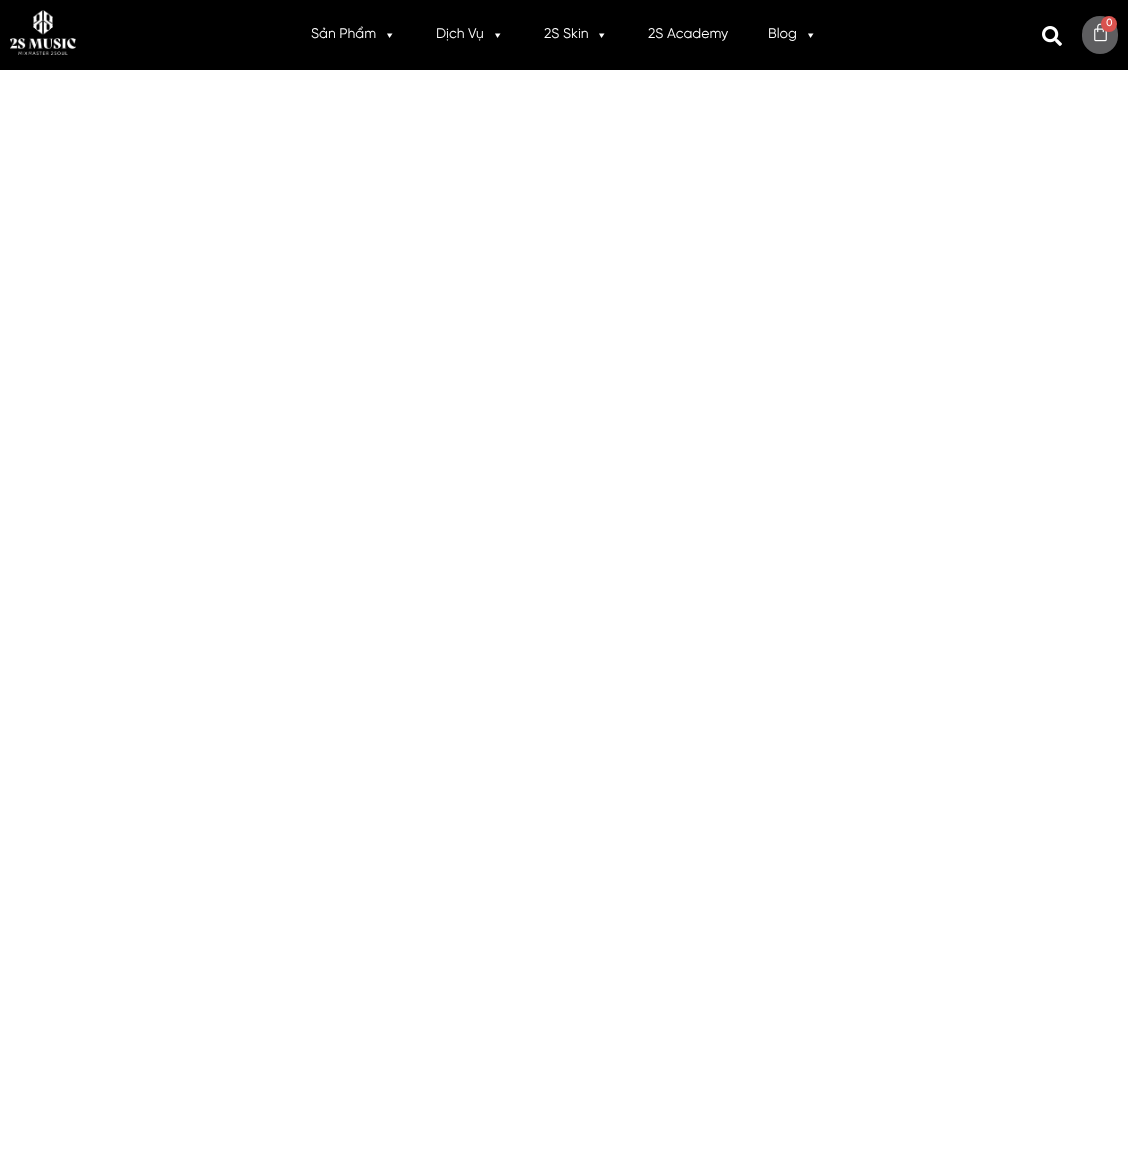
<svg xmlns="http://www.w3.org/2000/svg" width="1128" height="1161">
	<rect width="100%" height="100%" fill="#FFFFFF" />
	<rect x="0" y="0" width="1128" height="70" fill="#000000" />
	<image x="10" y="10" width="66" height="45" href="assets/img1.png" />
	<rect x="1082" y="16" width="36" height="38" rx="18" fill="#5E5E60" />
	<image x="1094" y="23" width="13" height="19" href="assets/img2.png" />
	<circle cx="1109" cy="24" r="8" fill="#D9534F" />
	<text x="1106" y="26" font-family="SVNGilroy" font-size="10" font-weight="700" fill="#FFFFFF">0</text>
	<image x="1042" y="26" width="20" height="20" href="assets/img3.png" />
	<text x="311" y="38" font-family="SVNGilroy" font-size="14" fill="#FFFFFF">Sản Phẩm</text>
	<path d="M392.5 33.5L389.5 38L387 33.5Z" fill="#FFFFFF" />
	<text x="436" y="38" font-family="SVNGilroy" font-size="14" fill="#FFFFFF">Dịch Vụ</text>
	<path d="M500.5 33.5L497.5 38L495 33.5Z" fill="#FFFFFF" />
	<text x="544" y="38" font-family="SVNGilroy" font-size="14" fill="#FFFFFF">2S Skin</text>
	<path d="M604.5 33.5L601.5 38L599 33.5Z" fill="#FFFFFF" />
	<g font-family="SVNGilroy" font-size="14" fill="#FFFFFF">
		<text x="648" y="38">2S Academy</text>
		<text x="768" y="38">Blog</text>
	</g>
	<path d="M813.5 33.5L810.5 38L808 33.5Z" fill="#FFFFFF" />
</svg>
